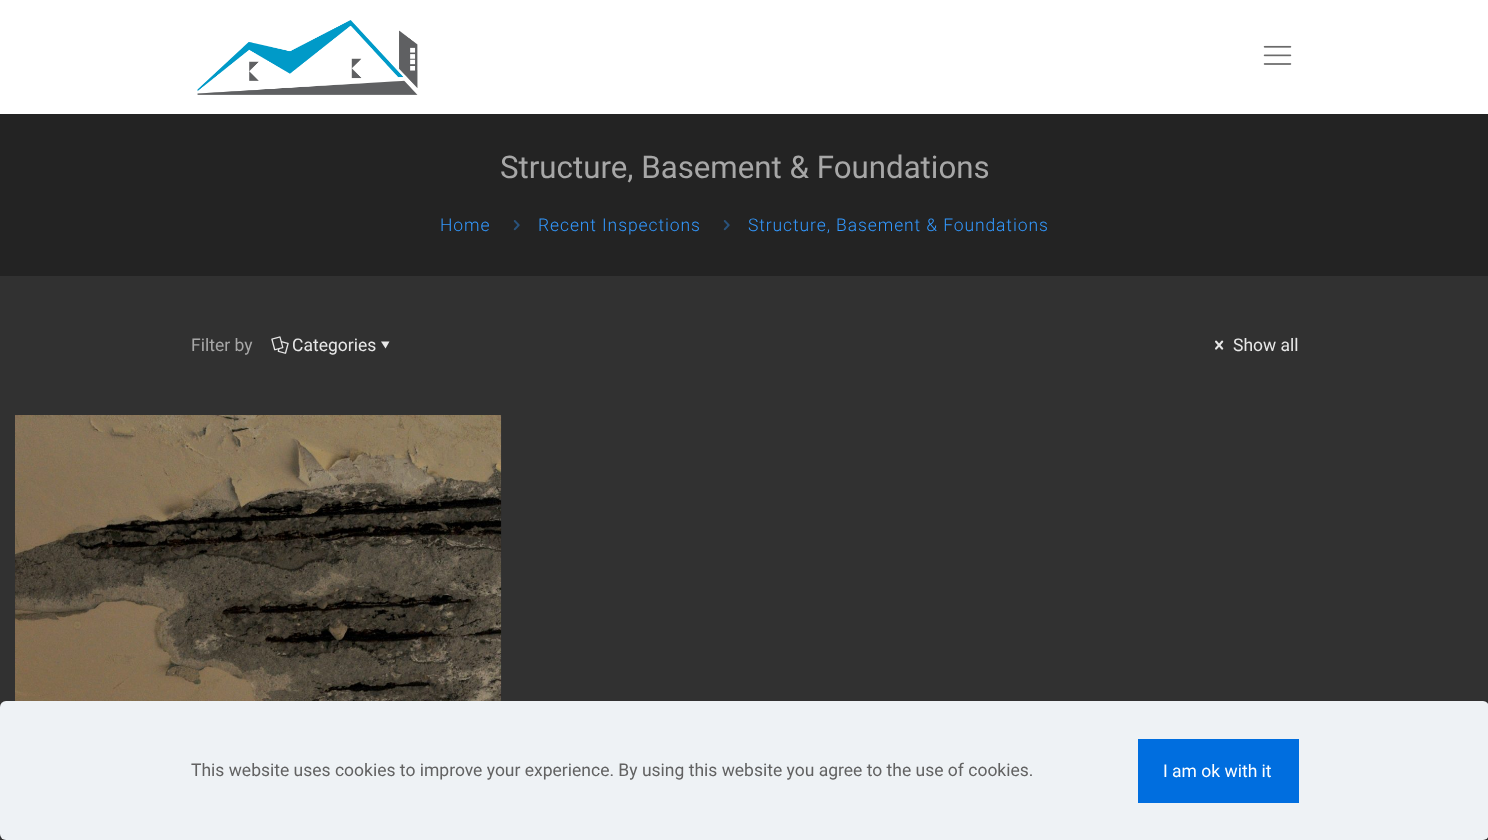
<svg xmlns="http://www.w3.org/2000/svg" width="1488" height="840">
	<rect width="100%" height="100%" fill="#313131" />
	<rect x="0" y="0" width="1488" height="114" fill="#FFFFFF" />
	<image x="197" y="20" width="221" height="75" href="assets/img1.png" />
	<image x="1263" y="45" width="29" height="20" href="assets/img2.png" />
	<rect x="0" y="114" width="1488" height="162" fill="#232323" />
	<text x="500" y="178" font-family="Roboto" font-size="31.25" fill="#A7A7A7">Structure, Basement &amp; Foundations</text>
	<text x="440" y="231" font-family="Roboto" font-size="17.5" font-weight="300" letter-spacing="0.9" fill="#3399FF">Home</text>
	<image x="513" y="220" width="7" height="11" href="assets/img3.png" />
	<text x="538" y="231" font-family="Roboto" font-size="17.5" font-weight="300" letter-spacing="0.9" fill="#3399FF">Recent Inspections</text>
	<image x="723" y="220" width="7" height="11" href="assets/img3.png" />
	<text x="748" y="231" font-family="Roboto" font-size="17.5" font-weight="300" letter-spacing="0.9" fill="#3399FF">Structure, Basement &amp; Foundations</text>
	<text x="191" y="351" font-family="Roboto" font-size="17.5" fill="#A7A7A7">Filter by</text>
	<image x="271" y="336" width="18" height="18" href="assets/img4.png" />
	<text x="292" y="351" font-family="Roboto" font-size="17.5" fill="#E8E8E8">Categories</text>
	<path d="M389.5 341.5L385.5 348.5L381 341.5Z" fill="#E8E8E8" />
	<image x="1215" y="340" width="9" height="10" href="assets/img5.png" />
	<text x="1233" y="351" font-family="Roboto" font-size="17.5" fill="#E8E8E8">Show all</text>
	<image x="15" y="415" width="487" height="286" href="assets/img6.png" />
	<rect x="0" y="701" width="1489" height="139" rx="6" fill="#EEF2F5" />
	<text x="191" y="776" font-family="Roboto" font-size="17.5" fill="#626262">This website uses cookies to improve your experience. By using this website you agree to the use of cookies.</text>
	<rect x="1138" y="739" width="161" height="64" fill="#006EDF" />
	<text x="1163" y="777" font-family="Roboto" font-size="17.5" fill="#FFFFFF">I am ok with it</text>
</svg>
